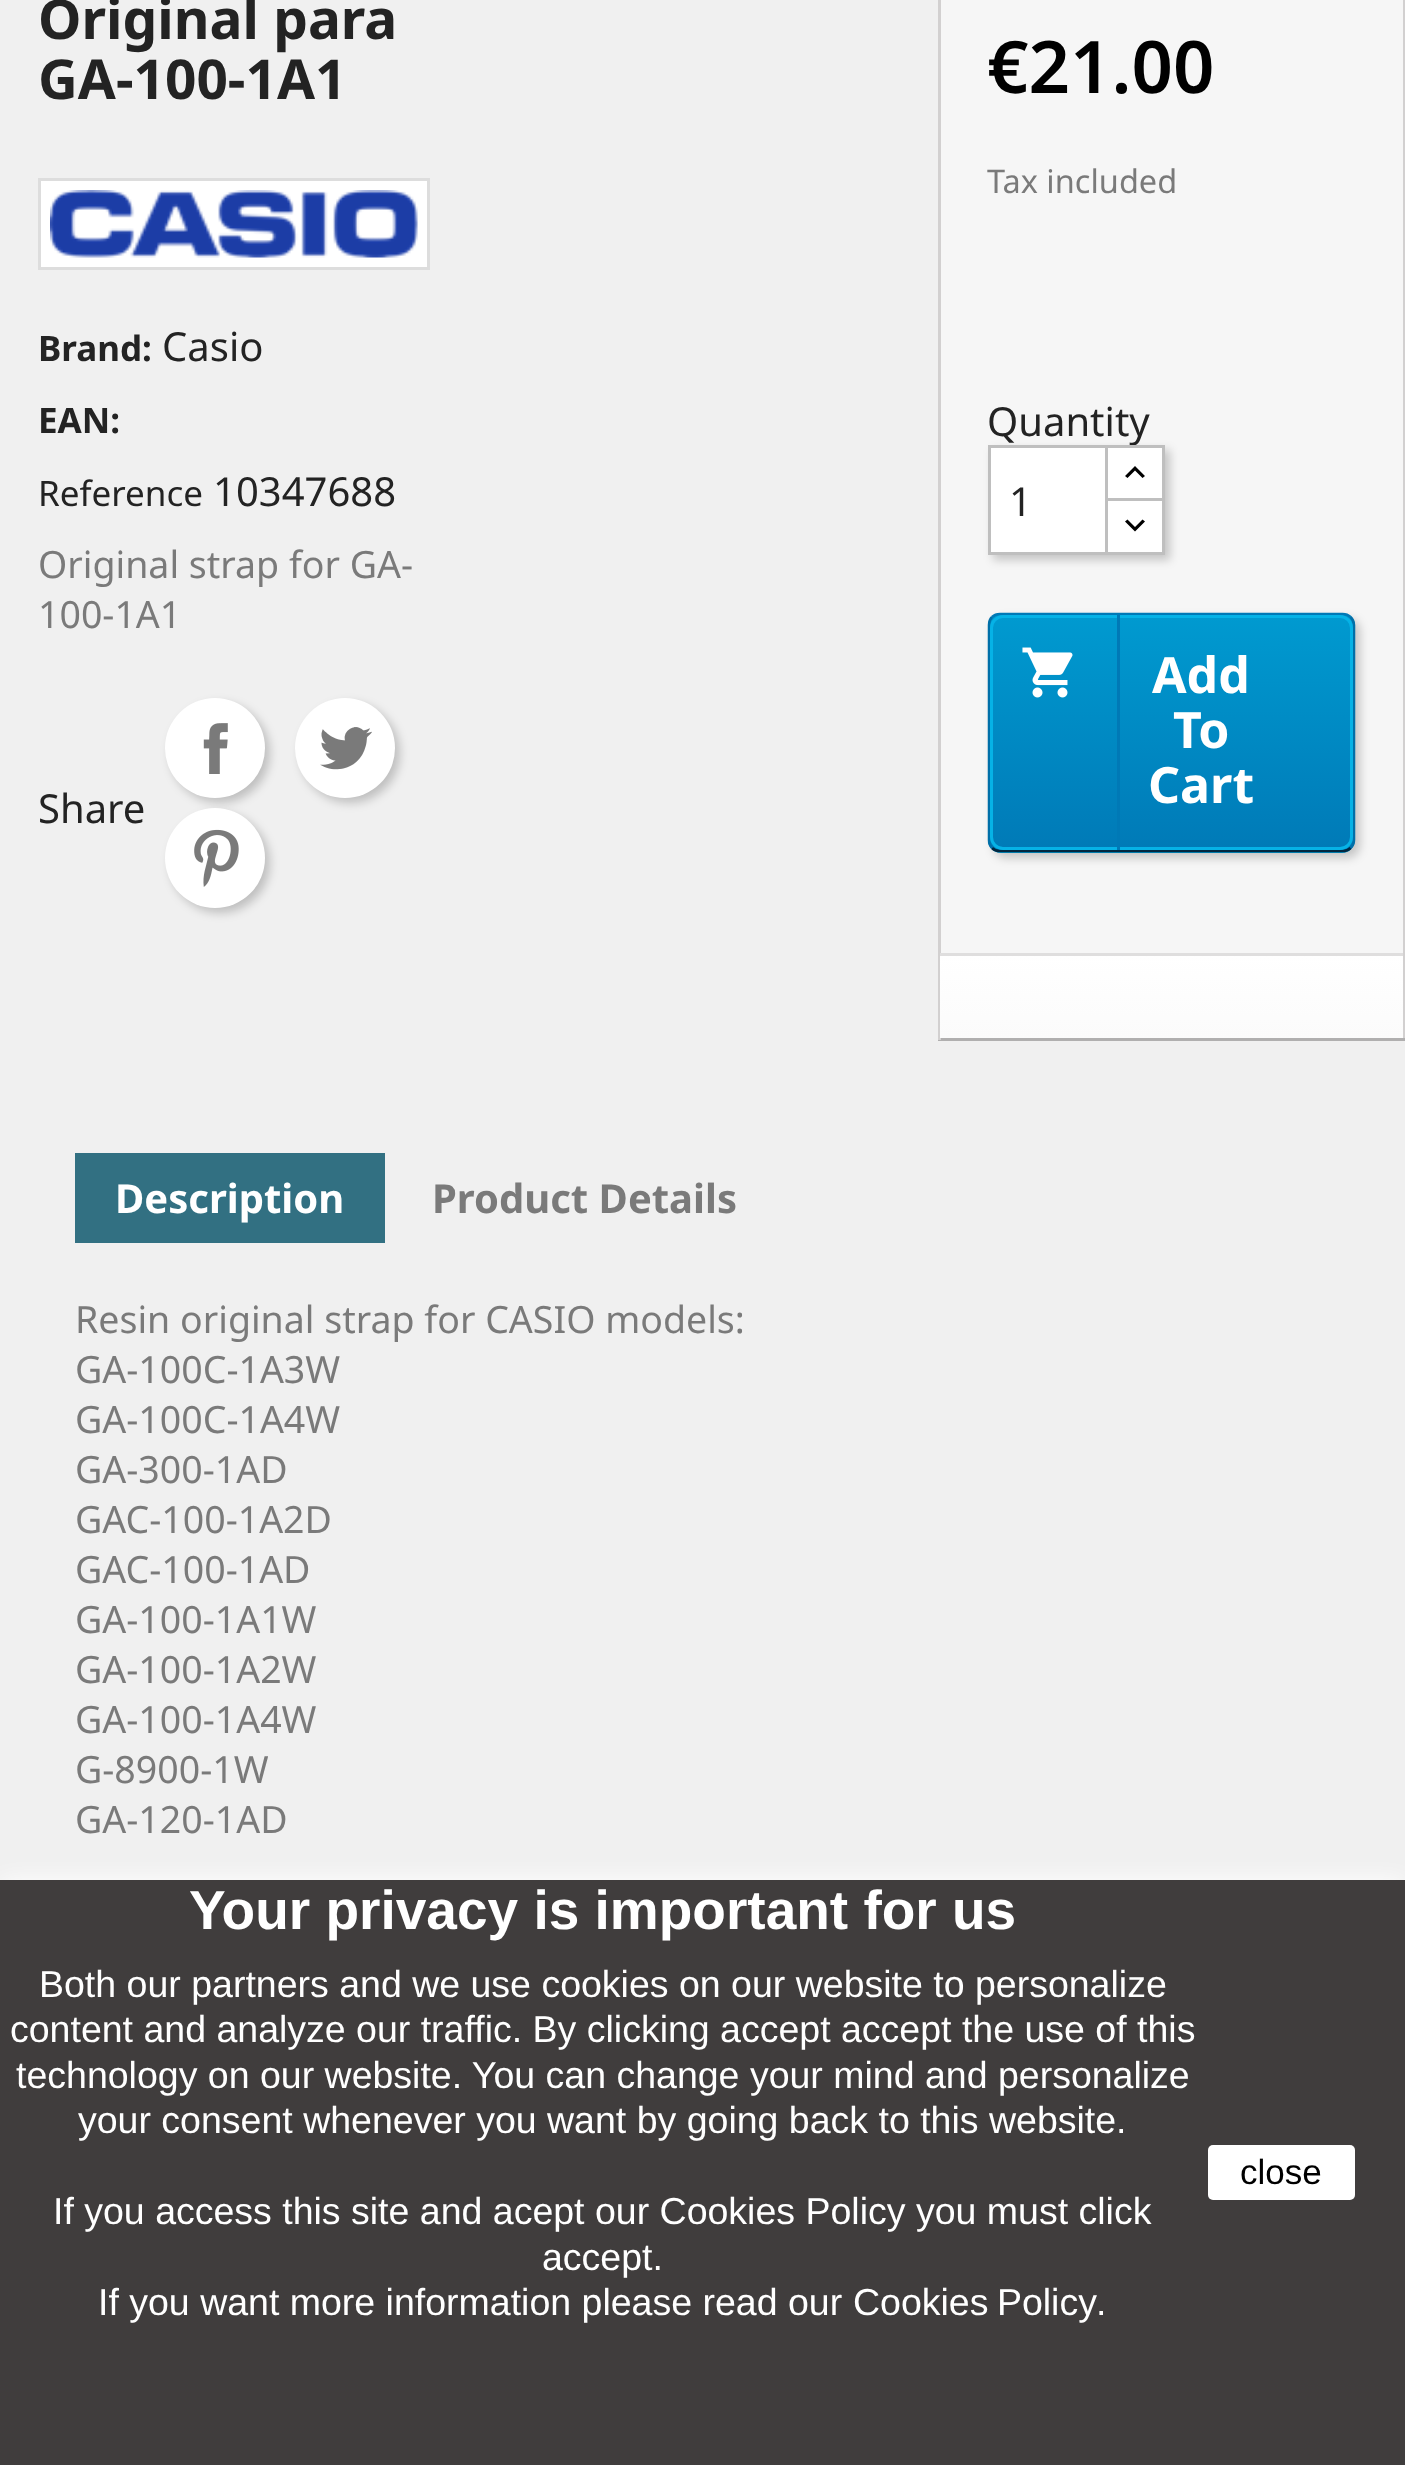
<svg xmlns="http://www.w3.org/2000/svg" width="1405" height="2465">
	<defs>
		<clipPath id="clip1"><rect x="988" y="613" width="367" height="240" rx="13" /></clipPath>
		<linearGradient id="g1" gradientUnits="userSpaceOnUse" x1="1171" y1="615" x2="1171" y2="850"><stop offset="0" stop-color="#009AD0" /><stop offset="1" stop-color="#007AB7" /></linearGradient>
		<linearGradient id="g2" gradientUnits="userSpaceOnUse" x1="1171" y1="850" x2="1171" y2="1085"><stop offset="0" stop-color="#009AD0" /><stop offset="1" stop-color="#007AB7" /></linearGradient>
		<linearGradient id="g3" gradientUnits="userSpaceOnUse" x1="1171" y1="955" x2="1171" y2="1038"><stop offset="0" stop-color="#FFFFFF" /><stop offset="1" stop-color="#FBFBFB" /></linearGradient>
	</defs>
	<rect width="100%" height="100%" fill="#F0F0F0" />
	<g font-family="Noto Sans" font-size="55" font-weight="700" fill="#232323">
		<text x="38" y="39">Original para</text>
		<text x="38" y="99">GA-100-1A1</text>
	</g>
	<rect x="39.5" y="179.5" width="389" height="89" fill="#FFFFFF" stroke="#DDDDDD" stroke-width="3" />
	<image x="50" y="190" width="368" height="68" href="assets/img1.png" />
	<text x="38" y="361" font-family="Noto Sans" font-size="35" font-weight="700" fill="#232323">Brand:</text>
	<text x="162" y="361" font-family="Noto Sans" font-size="40" fill="#232323">Casio</text>
	<text x="38" y="433" font-family="Noto Sans" font-size="35" font-weight="700" fill="#232323">EAN:</text>
	<text x="38" y="506" font-family="Noto Sans" font-size="35" fill="#232323">Reference</text>
	<text x="213" y="506" font-family="Noto Sans" font-size="40" fill="#232323">10347688</text>
	<g font-family="Noto Sans" font-size="37.5" fill="#7A7A7A">
		<text x="38" y="578">Original strap for GA-</text>
		<text x="38" y="628">100-1A1</text>
	</g>
	<text x="38" y="823" font-family="Noto Sans" font-size="40" fill="#232323">Share</text>
	<rect x="170" y="703" width="100" height="100" rx="50" fill="#000000" fill-opacity="0.2" filter="blur(5px)" />
	<circle cx="215" cy="748" r="50" fill="#FFFFFF" />
	<image x="203" y="723" width="25" height="51" href="assets/img2.png" />
	<rect x="300" y="703" width="100" height="100" rx="50" fill="#000000" fill-opacity="0.2" filter="blur(5px)" />
	<circle cx="345" cy="748" r="50" fill="#FFFFFF" />
	<image x="320" y="727" width="52" height="43" href="assets/img3.png" />
	<rect x="170" y="813" width="100" height="100" rx="50" fill="#000000" fill-opacity="0.2" filter="blur(5px)" />
	<circle cx="215" cy="858" r="50" fill="#FFFFFF" />
	<image x="194" y="829" width="45" height="58" href="assets/img4.png" />
	<rect x="941" y="0" width="462" height="953" fill="#F6F6F6" />
	<rect x="1403" y="0" width="2" height="1040" fill="#D2D0D0" />
	<rect x="938" y="1038" width="467" height="3" fill="#B0AFAF" />
	<rect x="938" y="0" width="3" height="1040" fill="#D2D0D0" />
	<text x="987" y="93" font-family="Noto Sans" font-size="72.5" font-weight="600" fill="#000000">€21.00</text>
	<text x="987" y="193" font-family="Noto Sans" font-size="32.5" fill="#7A7A7A">Tax included</text>
	<text x="987" y="436" font-family="Noto Sans" font-size="40" fill="#232323">Quantity</text>
	<rect x="993" y="450" width="177" height="110" fill="#000000" fill-opacity="0.2" filter="blur(5px)" />
	<rect x="1108" y="448" width="54" height="50" fill="#FFFFFF" />
	<rect x="1106.5" y="446.5" width="57" height="55" fill="none" stroke="#BFBFBF" stroke-width="3" />
	<rect x="1106.5" y="499.5" width="57" height="54" fill="#FFFFFF" stroke="#BFBFBF" stroke-width="3" />
	<rect x="989.5" y="446.5" width="117" height="107" fill="#FFFFFF" stroke="#BFBFBF" stroke-width="3" />
	<text x="1009" y="516" font-family="Noto Sans" font-size="40" fill="#232323">1</text>
	<path d="M1135 466L1145 476L1142.5 478L1135 470.5L1127.5 478L1125 476Z" fill="#000000" />
	<path d="M1142.5 519.5L1145 521.5L1135 531.5L1125 521.5L1127.5 519.5L1135 527Z" fill="#000000" />
	<rect x="993" y="618" width="367" height="240" rx="13" fill="#000000" fill-opacity="0.2" filter="blur(5px)" />
	<g clip-path="url(#clip1)">
		<rect x="988" y="615" width="367" height="235" fill="url(#g1)" />
		<rect x="988" y="850" width="367" height="3" fill="url(#g2)" />
	</g>
	<path d="M992 617C994 615 997 614 1000 614H1342.5C1345.5 614 1348.5 615 1350.5 617" fill="none" stroke="#0079B6" stroke-width="2.5" />
	<path d="M1350.5 617C1352.5 619 1354 622 1354 625V840C1354 843 1352.5 846 1350.5 848" fill="none" stroke="#006FA8" stroke-width="2.5" />
	<path d="M1350.5 848C1348.5 850 1345.5 851 1342.5 851H1000C997 851 994 850 992 848" fill="none" stroke="#012740" stroke-width="2.5" />
	<path d="M992 848C990 846 989 843 989 840V625C989 622 990 619 992 617" fill="none" stroke="#006FA8" stroke-width="2.5" />
	<rect x="991.5" y="616.5" width="360" height="232" rx="11.5" fill="none" stroke="#06B2E6" stroke-width="3" />
	<image x="1022" y="647" width="51" height="51" href="assets/img5.png" />
	<rect x="1117" y="615" width="3" height="235" fill="#0079B6" />
	<g font-family="Noto Sans" font-size="50" font-weight="700" fill="#FFFFFF">
		<text x="1152" y="693">Add</text>
		<text x="1173" y="748">To</text>
		<text x="1148" y="803">Cart</text>
	</g>
	<rect x="940" y="956" width="463" height="82" fill="url(#g3)" />
	<rect x="940" y="953" width="463" height="3" fill="#DFDEDE" />
	<rect x="75" y="1153" width="310" height="90" fill="#327082" />
	<text x="115" y="1213" font-family="Noto Sans" font-size="40" font-weight="700" fill="#FFFFFF">Description</text>
	<text x="432" y="1213" font-family="Noto Sans" font-size="40" font-weight="700" fill="#7A7A7A">Product Details</text>
	<g font-family="Noto Sans" font-size="37.5" fill="#7A7A7A">
		<text x="75" y="1333">Resin original strap for CASIO models:</text>
		<text x="75" y="1383">GA-100C-1A3W</text>
		<text x="75" y="1433">GA-100C-1A4W</text>
		<text x="75" y="1483">GA-300-1AD</text>
		<text x="75" y="1533">GAC-100-1A2D</text>
		<text x="75" y="1583">GAC-100-1AD</text>
		<text x="75" y="1633">GA-100-1A1W</text>
		<text x="75" y="1683">GA-100-1A2W</text>
		<text x="75" y="1733">GA-100-1A4W</text>
		<text x="75" y="1783">G-8900-1W</text>
		<text x="75" y="1833">GA-120-1AD</text>
	</g>
	<rect x="0" y="1880" width="1405" height="585" fill="#FFFFFF" filter="blur(12.5px)" />
	<rect x="0" y="1880" width="1405" height="585" fill="#403D3D" />
	<text x="189" y="1929" font-family="Liberation Sans" font-size="55" font-weight="700" fill="#FFFFFF">Your privacy is important for us</text>
	<g font-family="Liberation Sans" font-size="37.5" fill="#FFFFFF">
		<text x="39" y="1997">Both our partners and we use cookies on our website to personalize</text>
		<text x="10" y="2042">content and analyze our traffic. By clicking accept accept the use of this</text>
		<text x="16" y="2088">technology on our website. You can change your mind and personalize</text>
		<text x="78" y="2133">your consent whenever you want by going back to this website.</text>
		<text x="53" y="2224">If you access this site and acept our Cookies Policy you must click</text>
		<text x="542" y="2270">accept.</text>
		<text x="98" y="2315">If you want more information please read our</text>
		<text x="853" y="2315" word-spacing="-2">Cookies Policy</text>
		<text x="1096" y="2315">.</text>
	</g>
	<rect x="1208" y="2145" width="147" height="55" rx="5" fill="#FFFFFF" />
	<text x="1240" y="2184" font-family="Liberation Sans" font-size="35" fill="#000000">close</text>
</svg>
